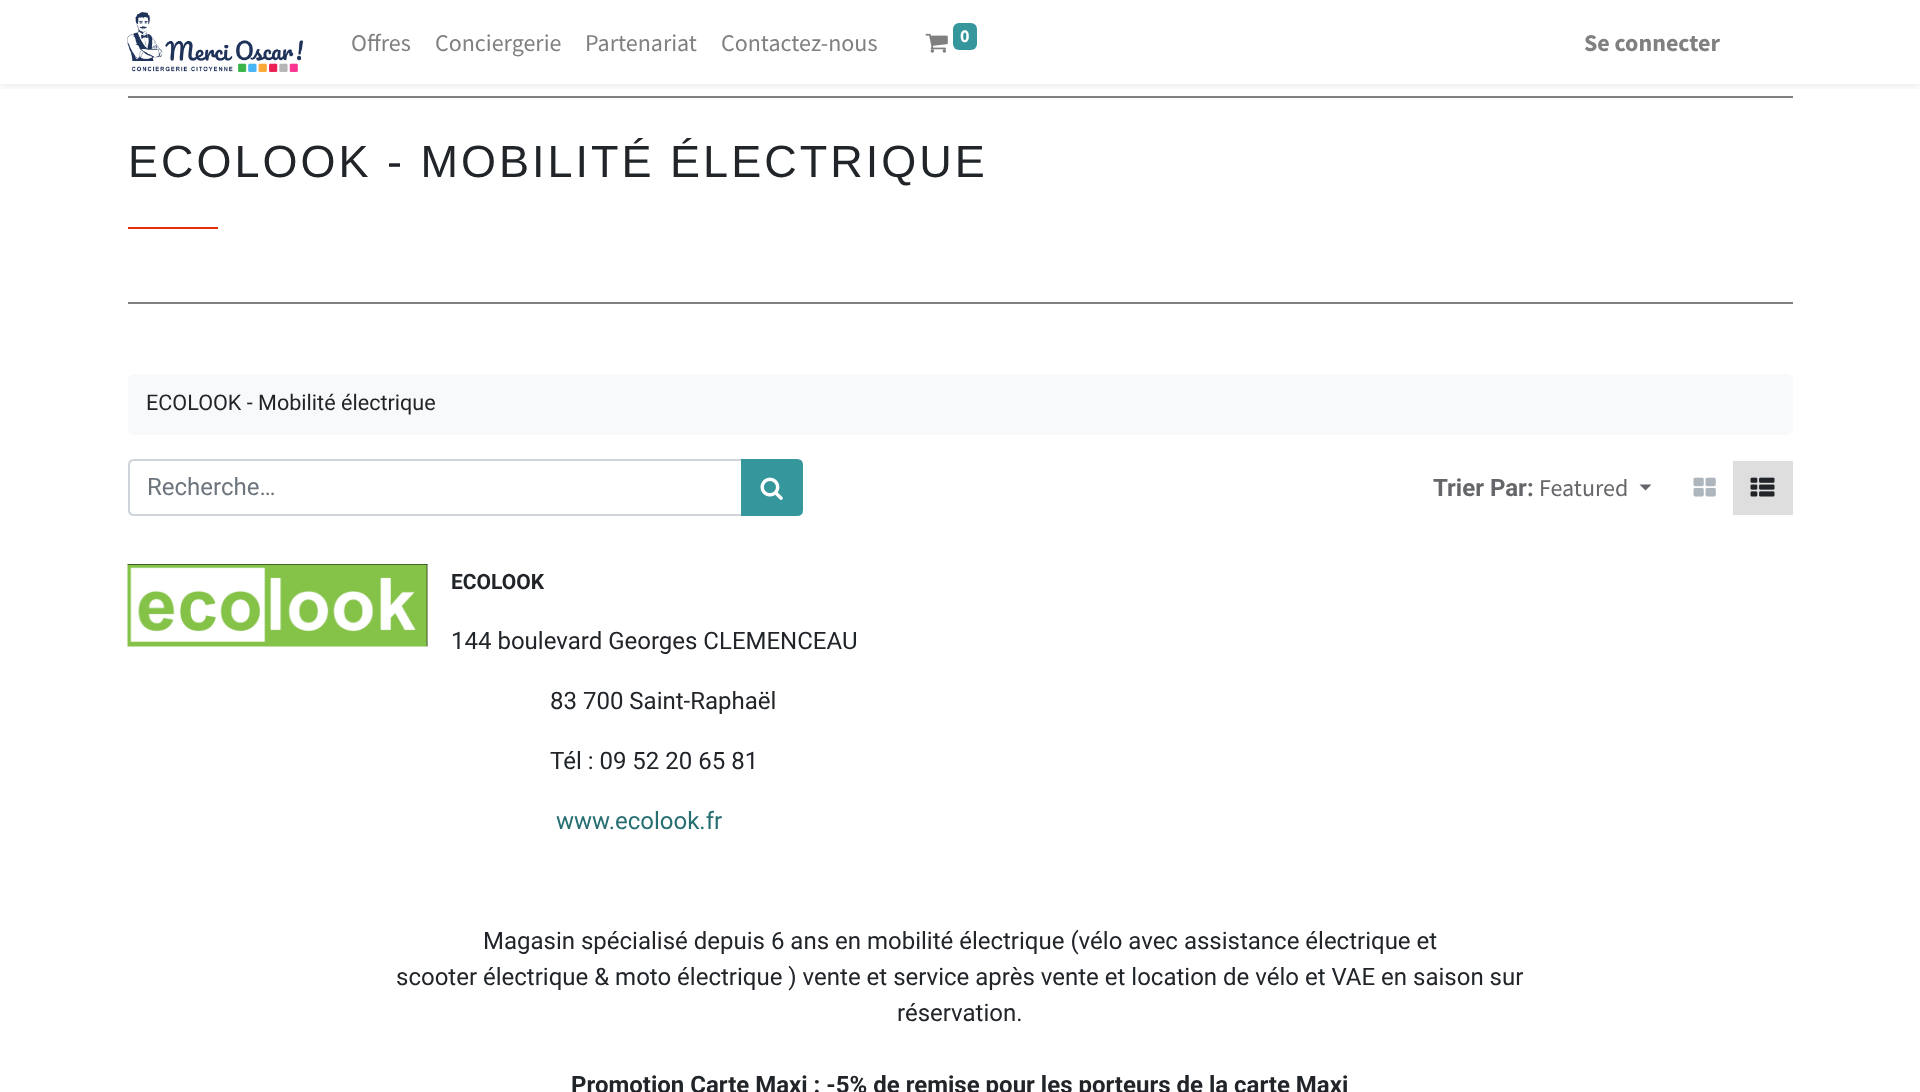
<svg xmlns="http://www.w3.org/2000/svg" width="1920" height="1092">
	<defs>
		<clipPath id="clip1"><rect x="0" y="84" width="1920" height="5" /></clipPath>
	</defs>
	<rect width="100%" height="100%" fill="#FFFFFF" />
	<rect x="128" y="96" width="1665" height="2" fill="#808080" />
	<g clip-path="url(#clip1)">
		<rect x="0" y="3" width="1920" height="84" fill="#000000" fill-opacity="0.07" filter="blur(3px)" />
	</g>
	<image x="127" y="12" width="176" height="60" href="assets/img1.png" />
	<g font-family="Source Sans Pro" font-size="24" fill="#808080">
		<text x="351" y="51">Offres</text>
		<text x="435" y="51">Conciergerie</text>
		<text x="585" y="51">Partenariat</text>
		<text x="721" y="51">Contactez-nous</text>
	</g>
	<image x="925" y="33" width="23" height="20" href="assets/img2.png" />
	<rect x="953" y="23" width="24" height="27" rx="6" fill="#35979C" />
	<text x="960" y="42" font-family="Source Sans Pro" font-size="18" font-weight="700" fill="#FFFFFF">0</text>
	<text x="1584" y="51" font-family="Source Sans Pro" font-size="24" font-weight="700" fill="#808080">Se connecter</text>
	<rect x="128" y="302" width="1665" height="2" fill="#808080" />
	<text x="128" y="177" font-family="Liberation Sans" font-size="45" letter-spacing="3" fill="#212529">ECOLOOK - MOBILITÉ ÉLECTRIQUE</text>
	<rect x="128" y="227" width="90" height="2" fill="#E52E06" />
	<rect x="128" y="374" width="1665" height="61" rx="6" fill="#F8F9FA" />
	<text x="146" y="410" font-family="Roboto" font-size="21.6" fill="#212529">ECOLOOK - Mobilité électrique</text>
	<path d="M134 460H742V515H134C131 515 129 513 129 510V465C129 462 131 460 134 460Z" fill="none" stroke="#CED4DA" stroke-width="2" />
	<text x="147" y="495" font-family="Roboto" font-size="24" fill="#6C757D">Recherche…</text>
	<path d="M742 460H797C800 460 802 462 802 465V510C802 513 800 515 797 515H742Z" fill="#35979C" stroke="#35979C" stroke-width="2" />
	<image x="760" y="477" width="23" height="23" href="assets/img3.png" />
	<text x="1433" y="496" font-family="Roboto" font-size="24" font-weight="700" fill="#646669">Trier Par:</text>
	<text x="1539" y="496" font-family="Source Sans Pro" font-size="24" fill="#646669">Featured</text>
	<path d="M1639.5 484.5H1651.5L1645.5 490.5Z" fill="#646669" />
	<image x="1693" y="477" width="23" height="20" href="assets/img4.png" />
	<rect x="1733" y="461" width="60" height="54" fill="#DEDEDE" />
	<image x="1750" y="477" width="25" height="20" href="assets/img5.png" />
	<image x="127" y="564" width="301" height="83" href="assets/img6.png" />
	<text x="451" y="589" font-family="Roboto" font-size="21" font-weight="700" fill="#212529">ECOLOOK</text>
	<g font-family="Roboto" font-size="24" fill="#212529">
		<text x="451" y="649">144 boulevard Georges CLEMENCEAU</text>
		<text x="550" y="709">83 700 Saint-Raphaël</text>
		<text x="550" y="769">Tél : 09 52 20 65 81</text>
	</g>
	<text x="556" y="829" font-family="Roboto" font-size="24" fill="#276E72">www.ecolook.fr</text>
	<g font-family="Roboto" font-size="24" fill="#212529">
		<text x="483" y="949">Magasin spécialisé depuis 6 ans en mobilité électrique (vélo avec assistance électrique et</text>
		<text x="396" y="985">scooter électrique &amp; moto électrique ) vente et service après vente et location de vélo et VAE en saison sur</text>
		<text x="897" y="1021">réservation.</text>
	</g>
	<text x="571" y="1093" font-family="Roboto" font-size="24" font-weight="700" fill="#212529">Promotion Carte Maxi : -5% de remise pour les porteurs de la carte Maxi</text>
</svg>
